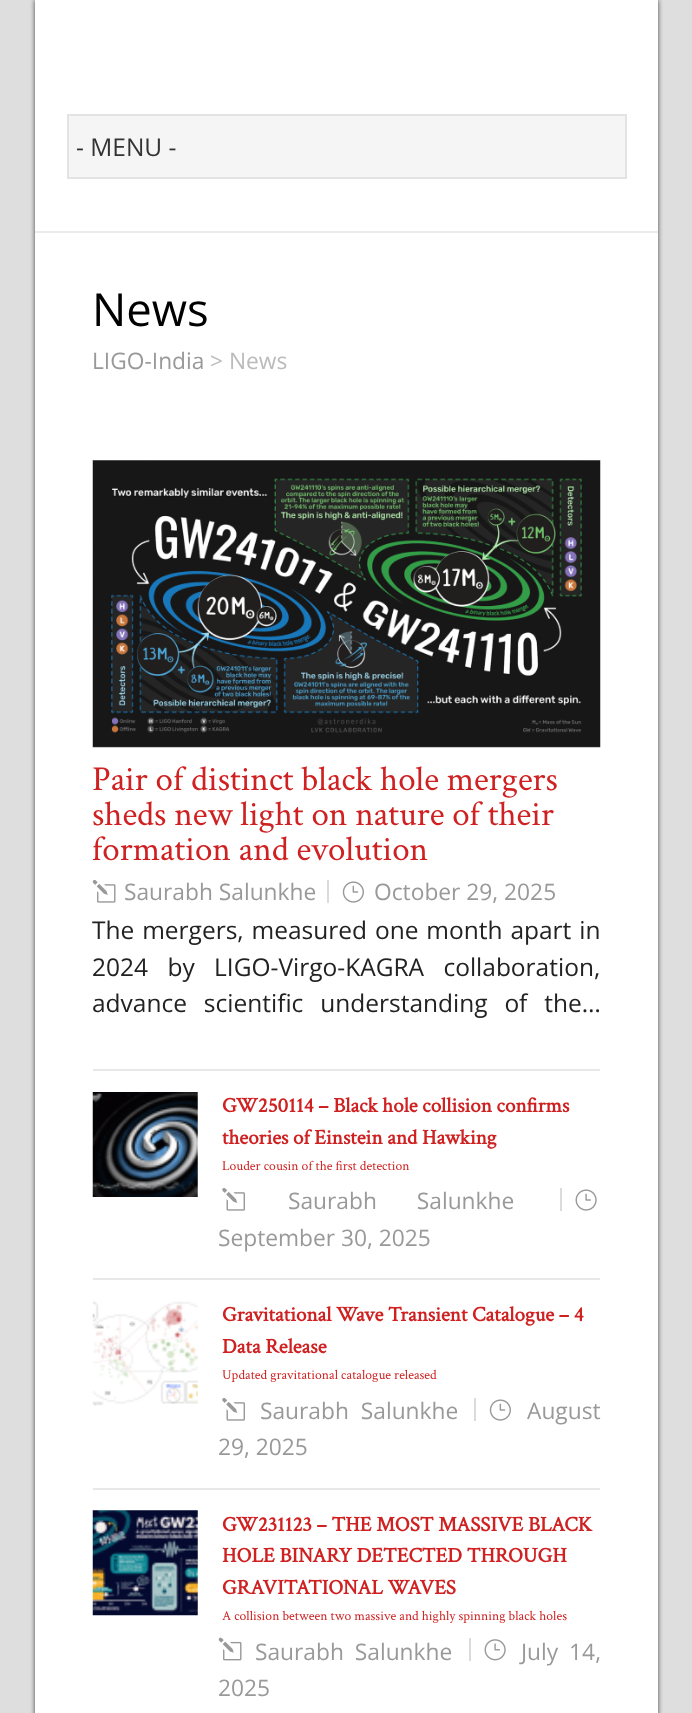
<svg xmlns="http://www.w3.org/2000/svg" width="692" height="1713">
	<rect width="100%" height="100%" fill="#DEDEDE" />
	<rect x="35" y="0" width="623" height="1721" fill="#444444" filter="blur(2.5px)" />
	<rect x="35" y="0" width="623" height="1713" fill="#FFFFFF" />
	<rect x="35" y="231" width="623" height="2" fill="#EBEBEB" />
	<rect x="68" y="115" width="558" height="63" fill="#F5F5F5" stroke="#E3E3E3" stroke-width="2" />
	<text x="76" y="156" font-family="Open Sans" font-size="24.5" fill="#333333">- MENU -</text>
	<text x="92" y="326" font-family="Open Sans" font-size="45.5" fill="#000000">News</text>
	<text x="92" y="369" font-family="Open Sans" font-size="22.75" fill="#999999">LIGO-India</text>
	<text x="210" y="369" font-family="Open Sans" font-size="22.75" fill="#BBBBBB">&gt; News</text>
	<rect x="93" y="1069" width="507" height="2" fill="#E8E8E8" />
	<image x="92" y="460" width="509" height="288" href="assets/img1.png" />
	<g font-family="Crimson Text" font-size="35" fill="#CF2121">
		<text x="92" y="790">Pair of distinct black hole mergers</text>
		<text x="92" y="825">sheds new light on nature of their</text>
		<text x="92" y="860">formation and evolution</text>
	</g>
	<image x="92" y="880" width="24" height="23" href="assets/img2.png" />
	<text x="124" y="900" font-family="Open Sans" font-size="22.75" fill="#999999">Saurabh Salunkhe</text>
	<image x="342" y="881" width="22" height="22" href="assets/img3.png" />
	<text x="374" y="900" font-family="Open Sans" font-size="22.75" fill="#999999">October 29, 2025</text>
	<rect x="327" y="880" width="2" height="23" fill="#DBDBDB" />
	<g font-family="Open Sans" font-size="24.5" fill="#222222">
		<text x="92" y="939" word-spacing="1.5">The mergers, measured one month apart in</text>
		<text x="92" y="976" word-spacing="13">2024 by LIGO-Virgo-KAGRA collaboration,</text>
		<text x="92" y="1012" word-spacing="10.5">advance scientific understanding of the…</text>
	</g>
	<rect x="93" y="1278" width="507" height="2" fill="#E8E8E8" />
	<image x="92" y="1092" width="106" height="105" href="assets/img4.png" />
	<g font-family="Crimson Text" font-size="21" font-weight="700" fill="#CF2121">
		<text x="222" y="1112">GW250114 – Black hole collision confirms</text>
		<text x="222" y="1144">theories of Einstein and Hawking</text>
	</g>
	<text x="222" y="1170" font-family="Crimson Text" font-size="13.65" fill="#CF2121">Louder cousin of the first detection</text>
	<image x="222" y="1188" width="23" height="23" href="assets/img5.png" />
	<text x="288" y="1209" word-spacing="34" font-family="Open Sans" font-size="22.75" fill="#999999">Saurabh Salunkhe</text>
	<image x="575" y="1189" width="22" height="22" href="assets/img6.png" />
	<text x="218" y="1246" font-family="Open Sans" font-size="22.75" fill="#999999">September 30, 2025</text>
	<rect x="560" y="1188" width="2" height="23" fill="#DBDBDB" />
	<rect x="93" y="1488" width="507" height="2" fill="#E8E8E8" />
	<image x="92" y="1301" width="106" height="105" href="assets/img7.png" />
	<g font-family="Crimson Text" font-size="21" font-weight="700" fill="#CF2121">
		<text x="222" y="1321">Gravitational Wave Transient Catalogue – 4</text>
		<text x="222" y="1353">Data Release</text>
	</g>
	<text x="222" y="1379" font-family="Crimson Text" font-size="13.65" fill="#CF2121">Updated gravitational catalogue released</text>
	<image x="222" y="1398" width="23" height="23" href="assets/img5.png" />
	<text x="260" y="1419" word-spacing="6" font-family="Open Sans" font-size="22.75" fill="#999999">Saurabh Salunkhe</text>
	<image x="489" y="1399" width="22" height="22" href="assets/img3.png" />
	<text x="527" y="1419" font-family="Open Sans" font-size="22.75" fill="#999999">August</text>
	<rect x="474" y="1398" width="2" height="23" fill="#DBDBDB" />
	<text x="218" y="1455" font-family="Open Sans" font-size="22.75" fill="#999999">29, 2025</text>
	<image x="92" y="1510" width="106" height="106" href="assets/img8.png" />
	<g font-family="Crimson Text" font-size="21" font-weight="700" fill="#CF2121">
		<text x="222" y="1531">GW231123 – THE MOST MASSIVE BLACK</text>
		<text x="222" y="1562">HOLE BINARY DETECTED THROUGH</text>
		<text x="222" y="1594">GRAVITATIONAL WAVES</text>
	</g>
	<text x="222" y="1620" font-family="Crimson Text" font-size="13.65" fill="#CF2121">A collision between two massive and highly spinning black holes</text>
	<image x="218" y="1637" width="24" height="24" href="assets/img9.png" />
	<text x="255" y="1660" word-spacing="5" font-family="Open Sans" font-size="22.75" fill="#999999">Saurabh Salunkhe</text>
	<image x="484" y="1639" width="22" height="22" href="assets/img10.png" />
	<text x="521" y="1660" word-spacing="5" font-family="Open Sans" font-size="22.75" fill="#999999">July 14,</text>
	<rect x="469" y="1638" width="2" height="23" fill="#DBDBDB" />
	<text x="218" y="1696" font-family="Open Sans" font-size="22.75" fill="#999999">2025</text>
</svg>
